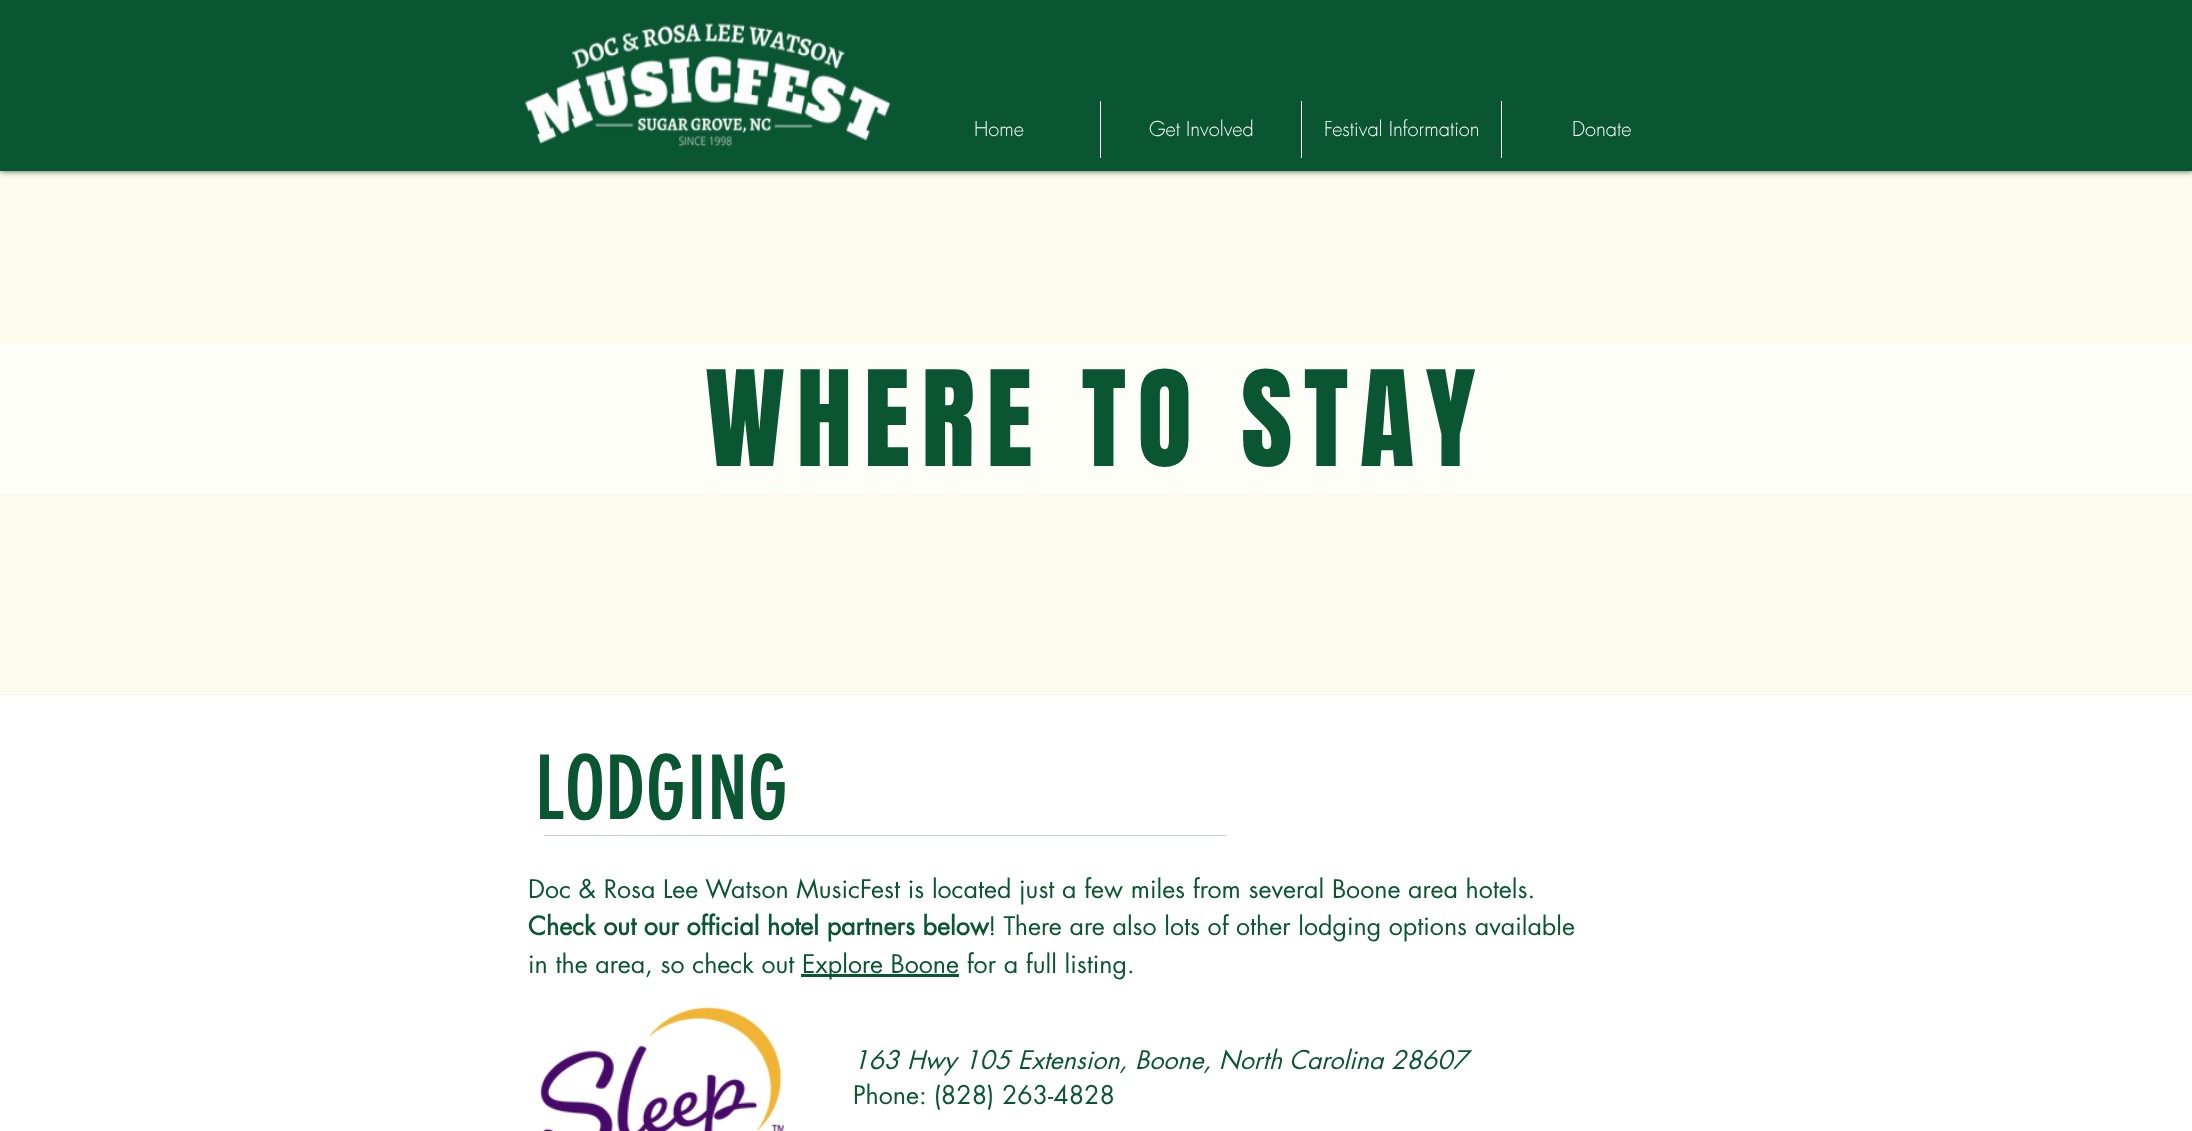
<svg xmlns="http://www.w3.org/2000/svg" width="2192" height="1131">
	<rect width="100%" height="100%" fill="#FFFFFF" />
	<rect x="0" y="171" width="2192" height="524" fill="#FDFCEC" />
	<rect x="0" y="0" width="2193" height="171" fill="#000000" fill-opacity="0.7" filter="blur(3px)" />
	<rect x="0" y="0" width="2192" height="171" fill="#0A5632" />
	<image x="525" y="23" width="366" height="124" href="assets/img1.png" />
	<text x="974" y="136" font-family="futura" font-size="20" font-weight="300" fill="#FFFFFF">Home</text>
	<rect x="1100" y="101" width="1" height="57" fill="#FFFFFF" />
	<text x="1149" y="136" font-family="futura" font-size="20" font-weight="300" fill="#FFFFFF">Get Involved</text>
	<rect x="1301" y="101" width="1" height="57" fill="#FFFFFF" />
	<text x="1324" y="136" font-family="futura" font-size="20" font-weight="300" fill="#FFFFFF">Festival Information</text>
	<rect x="1501" y="101" width="1" height="57" fill="#FFFFFF" />
	<text x="1572" y="136" font-family="futura" font-size="20" font-weight="300" fill="#FFFFFF">Donate</text>
	<rect x="0" y="344" width="2192" height="150" fill="#FEFEF9" />
	<text x="705" y="466" font-family="Anton" font-size="112.5" letter-spacing="11.25" fill="#0A5632">WHERE TO STAY</text>
	<text x="534" y="819" font-family="'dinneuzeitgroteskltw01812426'" font-size="87.5" fill="#0A5632">LODGING</text>
	<rect x="544" y="835" width="682" height="1" fill="#BCD4BD" />
	<text x="528" y="898" font-family="futura" font-size="25" fill="#0A5632">Doc &amp; Rosa Lee Watson MusicFest is located just a few miles from several Boone area hotels.</text>
	<text x="528" y="935" font-family="futura" font-size="25" font-weight="700" fill="#0A5632">Check out our official hotel partners below</text>
	<g font-family="futura" font-size="25" fill="#0A5632">
		<text x="988" y="935">! There are also lots of other lodging options available</text>
		<text x="528" y="973">in the area, so check out</text>
	</g>
	<rect x="801" y="974" width="158" height="3" fill="#0A5632" />
	<text x="802" y="973" font-family="futura" font-size="25" fill="#0A5632">Explore Boone for a full listing.</text>
	<image x="540" y="1007" width="244" height="124" href="assets/img2.png" />
	<text x="853" y="1069" font-family="futura" font-size="25" font-style="italic" fill="#0A5632">163 Hwy 105 Extension, Boone, North Carolina 28607</text>
	<text x="853" y="1104" font-family="futura" font-size="25" fill="#0A5632">Phone: (828) 263-4828</text>
</svg>
